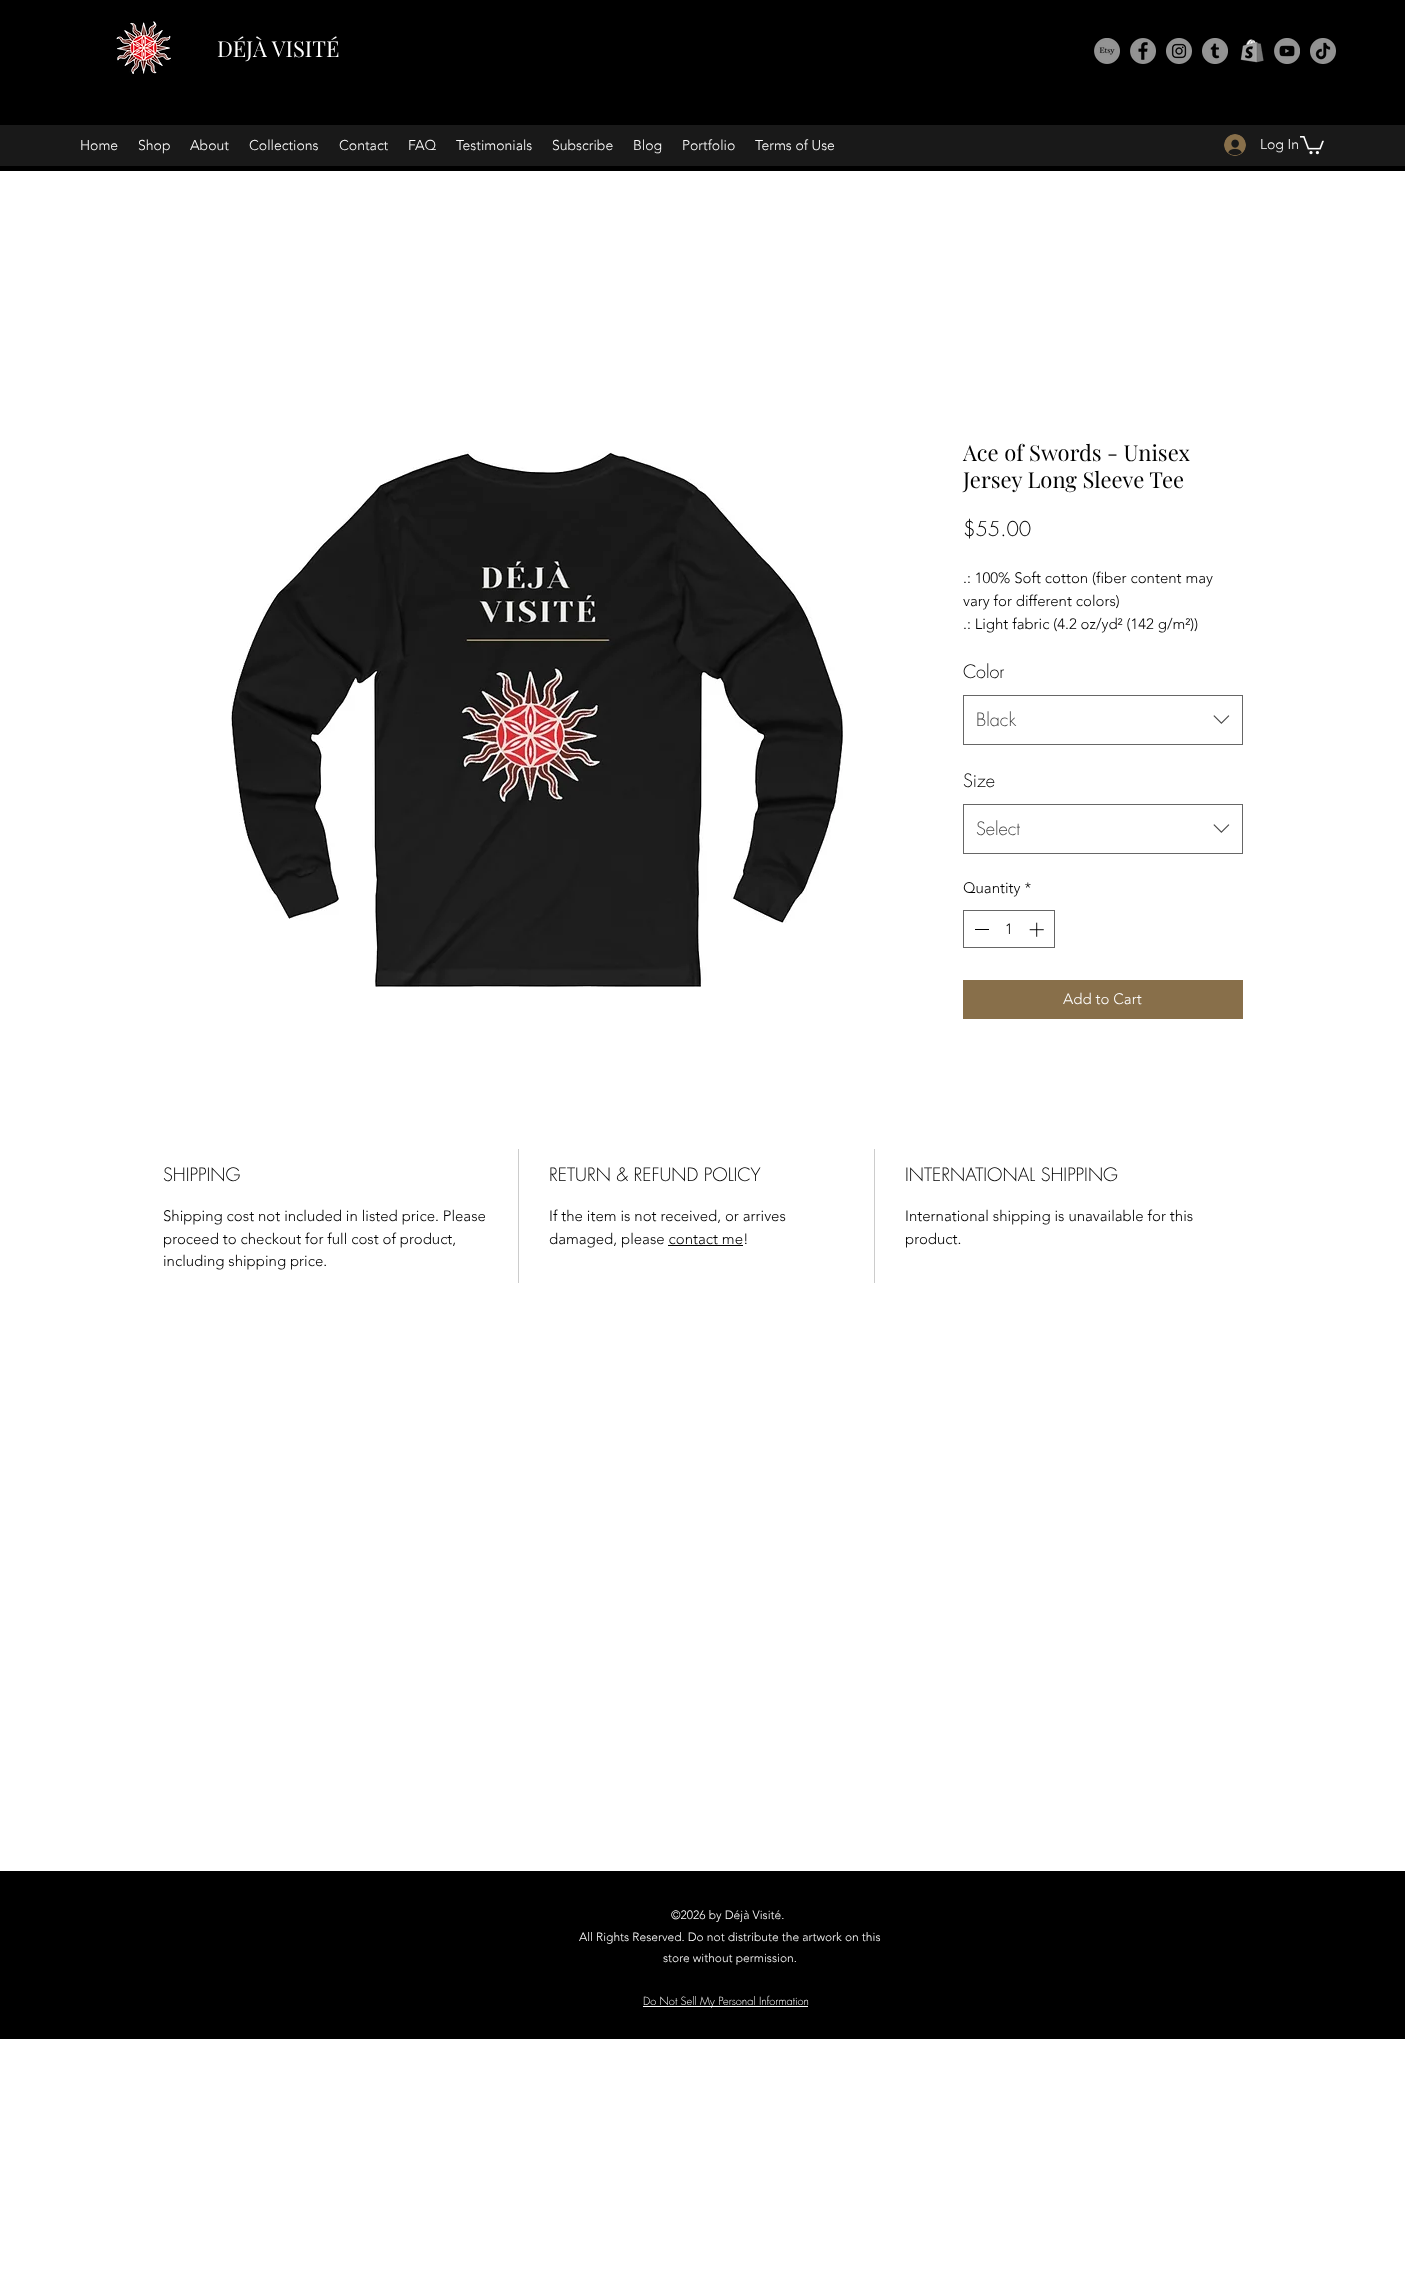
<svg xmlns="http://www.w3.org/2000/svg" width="1405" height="2285">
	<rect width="100%" height="100%" fill="#FFFFFF" />
	<rect x="0" y="0" width="1405" height="171" fill="#000000" />
	<image x="116" y="21" width="55" height="53" href="assets/img1.png" />
	<text x="217" y="57" font-family="Playfair Display" font-size="22" fill="#FFFFFF">DÉJÀ VISITÉ</text>
	<image x="1094" y="38" width="26" height="26" href="assets/img2.png" />
	<image x="1130" y="38" width="26" height="26" href="assets/img3.png" />
	<image x="1166" y="38" width="26" height="26" href="assets/img4.png" />
	<image x="1202" y="38" width="26" height="26" href="assets/img5.png" />
	<image x="1240" y="39" width="24" height="24" href="assets/img6.png" />
	<image x="1274" y="38" width="26" height="26" href="assets/img7.png" />
	<image x="1310" y="38" width="26" height="26" href="assets/img8.png" />
	<rect x="0" y="125" width="1405" height="41" fill="#191919" />
	<g font-family="'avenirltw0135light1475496'" font-size="14" font-weight="300" fill="#FFFFFF">
		<text x="80" y="150">Home</text>
		<text x="138" y="150">Shop</text>
		<text x="190" y="150">About</text>
		<text x="249" y="150">Collections</text>
		<text x="339" y="150">Contact</text>
		<text x="408" y="150">FAQ</text>
		<text x="456" y="150">Testimonials</text>
		<text x="552" y="150">Subscribe</text>
		<text x="633" y="150">Blog</text>
		<text x="682" y="150">Portfolio</text>
		<text x="755" y="150">Terms of Use</text>
	</g>
	<image x="1224" y="134" width="22" height="22" href="assets/img9.png" />
	<text x="1260" y="149" font-family="'avenirltw0135light1475496'" font-size="14" font-weight="300" fill="#FFFFFF">Log In</text>
	<image x="1300" y="136" width="24" height="19" href="assets/img10.png" />
	<image x="231" y="451" width="612" height="536" href="assets/img11.png" />
	<g font-family="Playfair Display" font-size="22" fill="#000000">
		<text x="963" y="461">Ace of Swords - Unisex</text>
		<text x="963" y="488">Jersey Long Sleeve Tee</text>
	</g>
	<text x="963" y="536" font-family="futura" font-size="20" font-weight="300" fill="#000000">$55.00</text>
	<g font-family="'avenirltw0135light1475496'" font-size="15" font-weight="300" fill="#000000">
		<text x="963" y="583">.: 100% Soft cotton (fiber content may</text>
		<text x="963" y="606">vary for different colors)</text>
		<text x="963" y="629">.: Light fabric (4.2 oz/yd² (142 g/m²))</text>
	</g>
	<text x="963" y="678" font-family="futura" font-size="18" font-weight="300" fill="#000000">Color</text>
	<rect x="963.5" y="695.5" width="279" height="49" fill="none" stroke="#666666" />
	<text x="976" y="726" font-family="futura" font-size="18" font-weight="300" fill="#444444">Black</text>
	<image x="1213" y="715" width="17" height="9" href="assets/img12.png" />
	<text x="963" y="787" font-family="futura" font-size="18" font-weight="300" fill="#000000">Size</text>
	<rect x="963.5" y="804.5" width="279" height="49" fill="none" stroke="#666666" />
	<text x="976" y="835" font-family="futura" font-size="18" font-weight="300" fill="#444444">Select</text>
	<image x="1213" y="824" width="17" height="9" href="assets/img12.png" />
	<text x="963" y="893" font-family="'avenirltw0135light1475496'" font-size="15" font-weight="300" fill="#000000">Quantity *</text>
	<rect x="963.5" y="910.5" width="91" height="37" fill="none" stroke="#666666" />
	<rect x="975" y="929" width="14" height="1" fill="#000000" />
	<text x="1005" y="934" font-family="'avenirltw0135light1475496'" font-size="15" font-weight="300" fill="#000000">1</text>
	<image x="1029" y="922" width="15" height="15" href="assets/img13.png" />
	<rect x="963" y="980" width="280" height="39" fill="#886F4A" />
	<text x="1063" y="1004" font-family="'avenirltw0135light1475496'" font-size="15" font-weight="300" fill="#FFFFFF">Add to Cart</text>
	<rect x="518" y="1149" width="1" height="134" fill="#CCCCCC" />
	<text x="163" y="1181" font-family="futura" font-size="18" font-weight="300" fill="#000000">SHIPPING</text>
	<g font-family="'avenirltw0135light1475496'" font-size="15" font-weight="300" fill="#000000">
		<text x="163" y="1221">Shipping cost not included in listed price. Please</text>
		<text x="163" y="1244">proceed to checkout for full cost of product,</text>
		<text x="163" y="1266">including shipping price.</text>
	</g>
	<rect x="874" y="1149" width="1" height="134" fill="#CCCCCC" />
	<text x="549" y="1181" font-family="futura" font-size="18" font-weight="300" fill="#000000">RETURN &amp; REFUND POLICY</text>
	<g font-family="'avenirltw0135light1475496'" font-size="15" font-weight="300" fill="#000000">
		<text x="549" y="1221">If the item is not received, or arrives</text>
		<text x="549" y="1244">damaged, please contact me!</text>
	</g>
	<rect x="668" y="1245" width="75" height="1" fill="#000000" />
	<text x="905" y="1181" font-family="futura" font-size="18" font-weight="300" fill="#000000">INTERNATIONAL SHIPPING</text>
	<g font-family="'avenirltw0135light1475496'" font-size="15" font-weight="300" fill="#000000">
		<text x="905" y="1221">International shipping is unavailable for this</text>
		<text x="905" y="1244">product.</text>
	</g>
	<rect x="0" y="1871" width="1405" height="168" fill="#000000" />
	<g font-family="'avenirltw0135light1475496'" font-size="12" font-weight="300" fill="#FFFFFF">
		<text x="671" y="1919">©2026 by Déjà Visité.</text>
		<text x="579" y="1941">All Rights Reserved. Do not distribute the artwork on this</text>
		<text x="663" y="1962">store without permission.</text>
	</g>
	<rect x="643" y="2006" width="165" height="1" fill="#FFFFFF" />
	<text x="643" y="2005" font-family="futura" font-size="11" font-weight="300" fill="#FFFFFF">Do Not Sell My Personal Information</text>
</svg>
